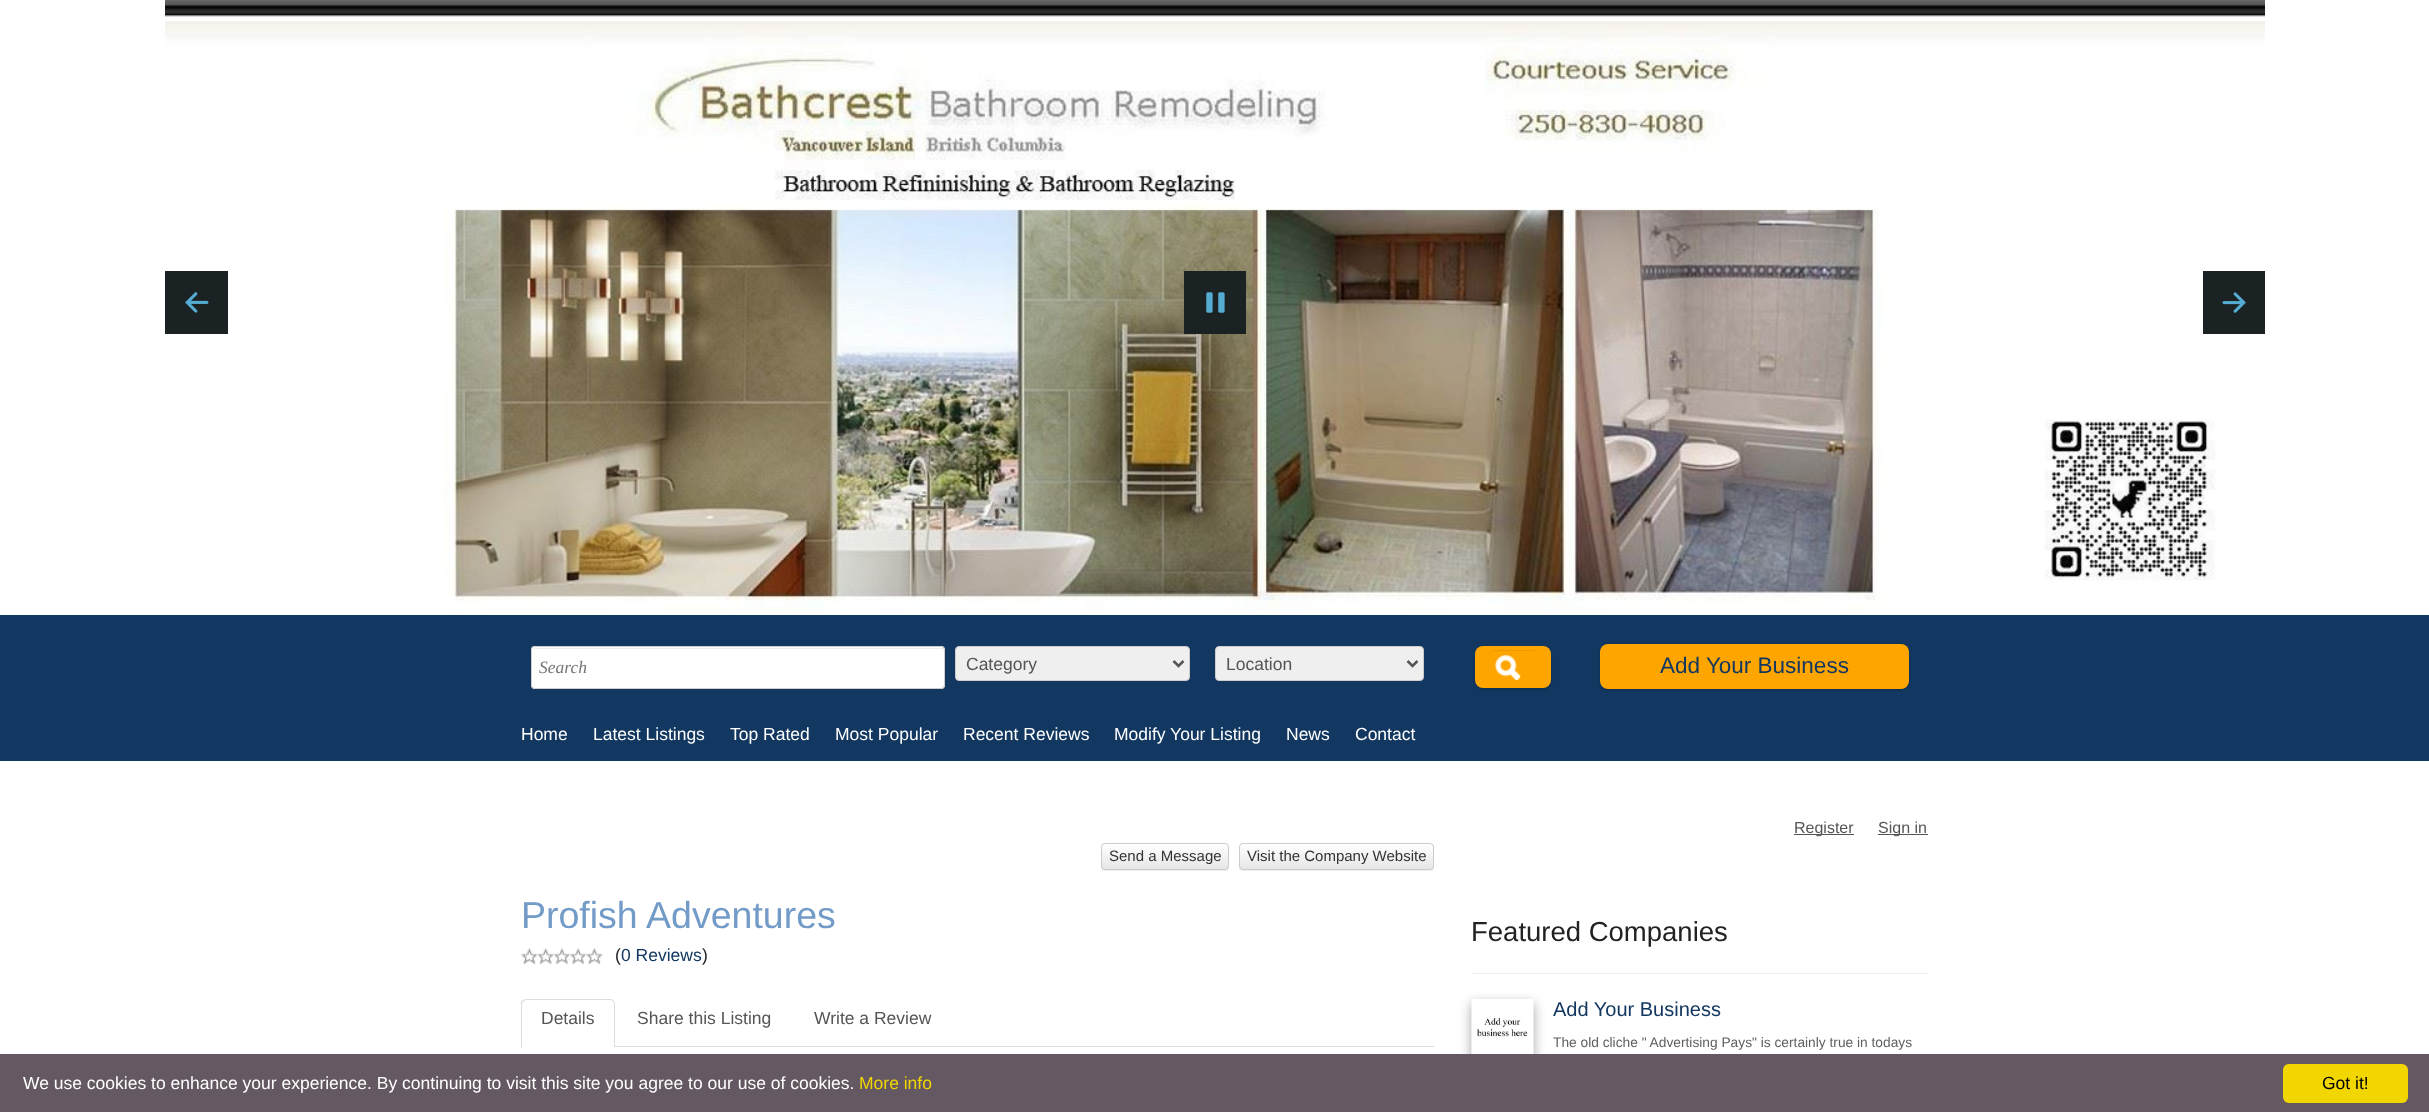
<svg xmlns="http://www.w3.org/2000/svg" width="2429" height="1112">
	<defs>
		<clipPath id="clip1"><rect x="1101" y="843" width="128" height="27" rx="4" /></clipPath>
		<linearGradient id="g1" gradientUnits="userSpaceOnUse" x1="1165" y1="844" x2="1165" y2="869"><stop offset="0" stop-color="#FFFFFF" /><stop offset="1" stop-color="#E6E6E6" /></linearGradient>
		<clipPath id="clip2"><rect x="1239" y="843" width="195" height="27" rx="4" /></clipPath>
		<linearGradient id="g2" gradientUnits="userSpaceOnUse" x1="1336" y1="844" x2="1336" y2="869"><stop offset="0" stop-color="#FFFFFF" /><stop offset="1" stop-color="#E6E6E6" /></linearGradient>
	</defs>
	<rect width="100%" height="100%" fill="#FFFFFF" />
	<image x="165" y="0" width="2100" height="610" href="assets/img1.png" />
	<rect x="165" y="271" width="63" height="63" fill="#1A2223" />
	<image x="185" y="292" width="24" height="21" href="assets/img2.png" />
	<rect x="1184" y="271" width="62" height="63" fill="#1A2223" />
	<image x="1206" y="292" width="19" height="21" href="assets/img3.png" />
	<rect x="2203" y="271" width="62" height="63" fill="#1A2223" />
	<image x="2222" y="292" width="24" height="21" href="assets/img4.png" />
	<rect x="0" y="615" width="2429" height="146" fill="#123760" />
	<rect x="531" y="646" width="414" height="43" rx="4" fill="#FFFFFF" />
	<path d="M535 649H941C943 649 944 650 944 651V650C944 649 943 648 942 648H536C534 648 534 649 533 650Z" fill="#ECECEC" />
	<rect x="531.5" y="646.5" width="413" height="42" rx="3.5" fill="none" stroke="#CCCCCC" />
	<text x="539" y="673" font-family="Liberation Serif" font-size="17.5" font-style="italic" fill="#757575">Search</text>
	<rect x="955.5" y="646.5" width="234" height="34" rx="3.5" fill="#EFEFEF" stroke="#CCCCCC" />
	<path d="M1173.5 661L1178.5 666L1183.5 661" fill="none" stroke="#555555" stroke-width="2.5" />
	<text x="966" y="670" font-family="Liberation Sans" font-size="17.5" fill="#555555">Category</text>
	<rect x="1215.5" y="646.5" width="208" height="34" rx="3.5" fill="#EFEFEF" stroke="#CCCCCC" />
	<path d="M1407.5 661L1412.5 666L1417.5 661" fill="none" stroke="#555555" stroke-width="2.5" />
	<text x="1226" y="670" font-family="Liberation Sans" font-size="17.5" fill="#555555">Location</text>
	<rect x="1475" y="648" width="76" height="41" rx="8" fill="#000000" fill-opacity="0.18" filter="blur(1px)" />
	<rect x="1475" y="646" width="76" height="42" rx="8" fill="#FFA500" />
	<path d="M1494 651H1534C1536 651 1538 653 1538 655C1538 649 1532 650 1527 650H1501C1496 650 1490 649 1490 655C1490 653 1492 651 1494 651Z" fill="#EC9900" />
	<image x="1495" y="655" width="26" height="25" href="assets/img5.png" />
	<rect x="1600" y="645" width="309" height="45" rx="8" fill="#000000" fill-opacity="0.18" filter="blur(1px)" />
	<rect x="1600" y="644" width="309" height="45" rx="8" fill="#FFA500" />
	<text x="1660" y="673" font-family="Liberation Sans" font-size="22.5" fill="#123760">Add Your Business</text>
	<g font-family="Liberation Sans" font-size="17.5" fill="#FFFFFF">
		<text x="521" y="740">Home</text>
		<text x="593" y="740">Latest Listings</text>
		<text x="730" y="740">Top Rated</text>
		<text x="835" y="740">Most Popular</text>
		<text x="963" y="740">Recent Reviews</text>
		<text x="1114" y="740">Modify Your Listing</text>
		<text x="1286" y="740">News</text>
		<text x="1355" y="740">Contact</text>
	</g>
	<rect x="1794" y="834" width="60" height="1" fill="#555555" />
	<text x="1794" y="833" font-family="Liberation Sans" font-size="16" fill="#555555">Register</text>
	<rect x="1878" y="834" width="50" height="1" fill="#555555" />
	<text x="1878" y="833" font-family="Liberation Sans" font-size="16" fill="#555555">Sign in</text>
	<rect x="1101" y="844" width="128" height="27" rx="4" fill="#000000" fill-opacity="0.07" filter="blur(0.5px)" />
	<g clip-path="url(#clip1)">
		<rect x="1101" y="844" width="128" height="25" fill="url(#g1)" />
	</g>
	<rect x="1101.5" y="843.5" width="127" height="26" rx="3.5" fill="none" stroke="#CCCCCC" />
	<text x="1109" y="861" font-family="Liberation Sans" font-size="15" fill="#333333">Send a Message</text>
	<rect x="1239" y="844" width="195" height="27" rx="4" fill="#000000" fill-opacity="0.07" filter="blur(0.5px)" />
	<g clip-path="url(#clip2)">
		<rect x="1239" y="844" width="195" height="25" fill="url(#g2)" />
	</g>
	<path d="M1242 845H1430C1433 845 1432 853 1432 855V869C1433 868 1433 867 1433 866V846C1433 845 1432 844 1430 844H1242C1241 844 1240 845 1240 846V848C1240 846 1241 845 1242 845Z" fill="#FFFFFF" fill-opacity="0.15" />
	<rect x="1239.5" y="843.5" width="194" height="26" rx="3.5" fill="none" stroke="#CCCCCC" />
	<text x="1247" y="861" font-family="Liberation Sans" font-size="15" fill="#333333">Visit the Company Website</text>
	<text x="521" y="928" font-family="Liberation Sans" font-size="37.5" fill="#729BC8">Profish Adventures</text>
	<image x="521" y="948" width="17" height="16" href="assets/img6.png" />
	<image x="537" y="948" width="17" height="16" href="assets/img7.png" />
	<image x="554" y="948" width="16" height="16" href="assets/img8.png" />
	<image x="570" y="948" width="17" height="16" href="assets/img9.png" />
	<image x="586" y="948" width="17" height="16" href="assets/img10.png" />
	<text x="615" y="961" font-family="Liberation Sans" font-size="17.5" fill="#222222">(</text>
	<text x="621" y="961" font-family="Liberation Sans" font-size="17.5" fill="#123760">0 Reviews</text>
	<text x="702" y="961" font-family="Liberation Sans" font-size="17.5" fill="#222222">)</text>
	<rect x="615" y="1046" width="819" height="1" fill="#DDDDDD" />
	<path d="M526 999L523 1000L524 1001L526 1000H610L613 1001V1000C613 999 611 999 610 999Z" fill="#DDDDDD" />
	<path d="M613 1000C614 1001 615 1002 615 1004V1048L614 1046V1004C614 1003 613 1002 613 1001Z" fill="#DDDDDD" />
	<path d="M521 1048L523 1046H522V1003L524 1001L523 1000L521 1002Z" fill="#DDDDDD" />
	<g font-family="Liberation Sans" font-size="17.5" fill="#555555">
		<text x="541" y="1024">Details</text>
		<text x="637" y="1024">Share this Listing</text>
		<text x="814" y="1024">Write a Review</text>
	</g>
	<text x="1471" y="941" font-family="Liberation Sans" font-size="27.5" fill="#222222">Featured Companies</text>
	<rect x="1471" y="973" width="457" height="1" fill="#EEEEEE" />
	<rect x="1471" y="1003" width="63" height="62" rx="4" fill="#AAAAAA" filter="blur(6px)" />
	<image x="1471" y="999" width="63" height="55" href="assets/img11.png" />
	<text x="1553" y="1016" font-family="Liberation Sans" font-size="20" fill="#123760">Add Your Business</text>
	<text x="1553" y="1047" font-family="Liberation Sans" font-size="13.75" fill="#5F5F5F">The old cliche " Advertising Pays" is certainly true in todays</text>
	<rect x="0" y="1054" width="2429" height="58" fill="#645862" />
	<text x="23" y="1089" font-family="Liberation Sans" font-size="17.5" fill="#FFFFFF">We use cookies to enhance your experience. By continuing to visit this site you agree to our use of cookies.</text>
	<text x="859" y="1089" font-family="Liberation Sans" font-size="17.5" fill="#F1D600">More info</text>
	<rect x="2283" y="1064" width="125" height="39" rx="6" fill="#F1D600" />
	<text x="2322" y="1089" font-family="Liberation Sans" font-size="17.5" fill="#000000">Got it!</text>
</svg>
